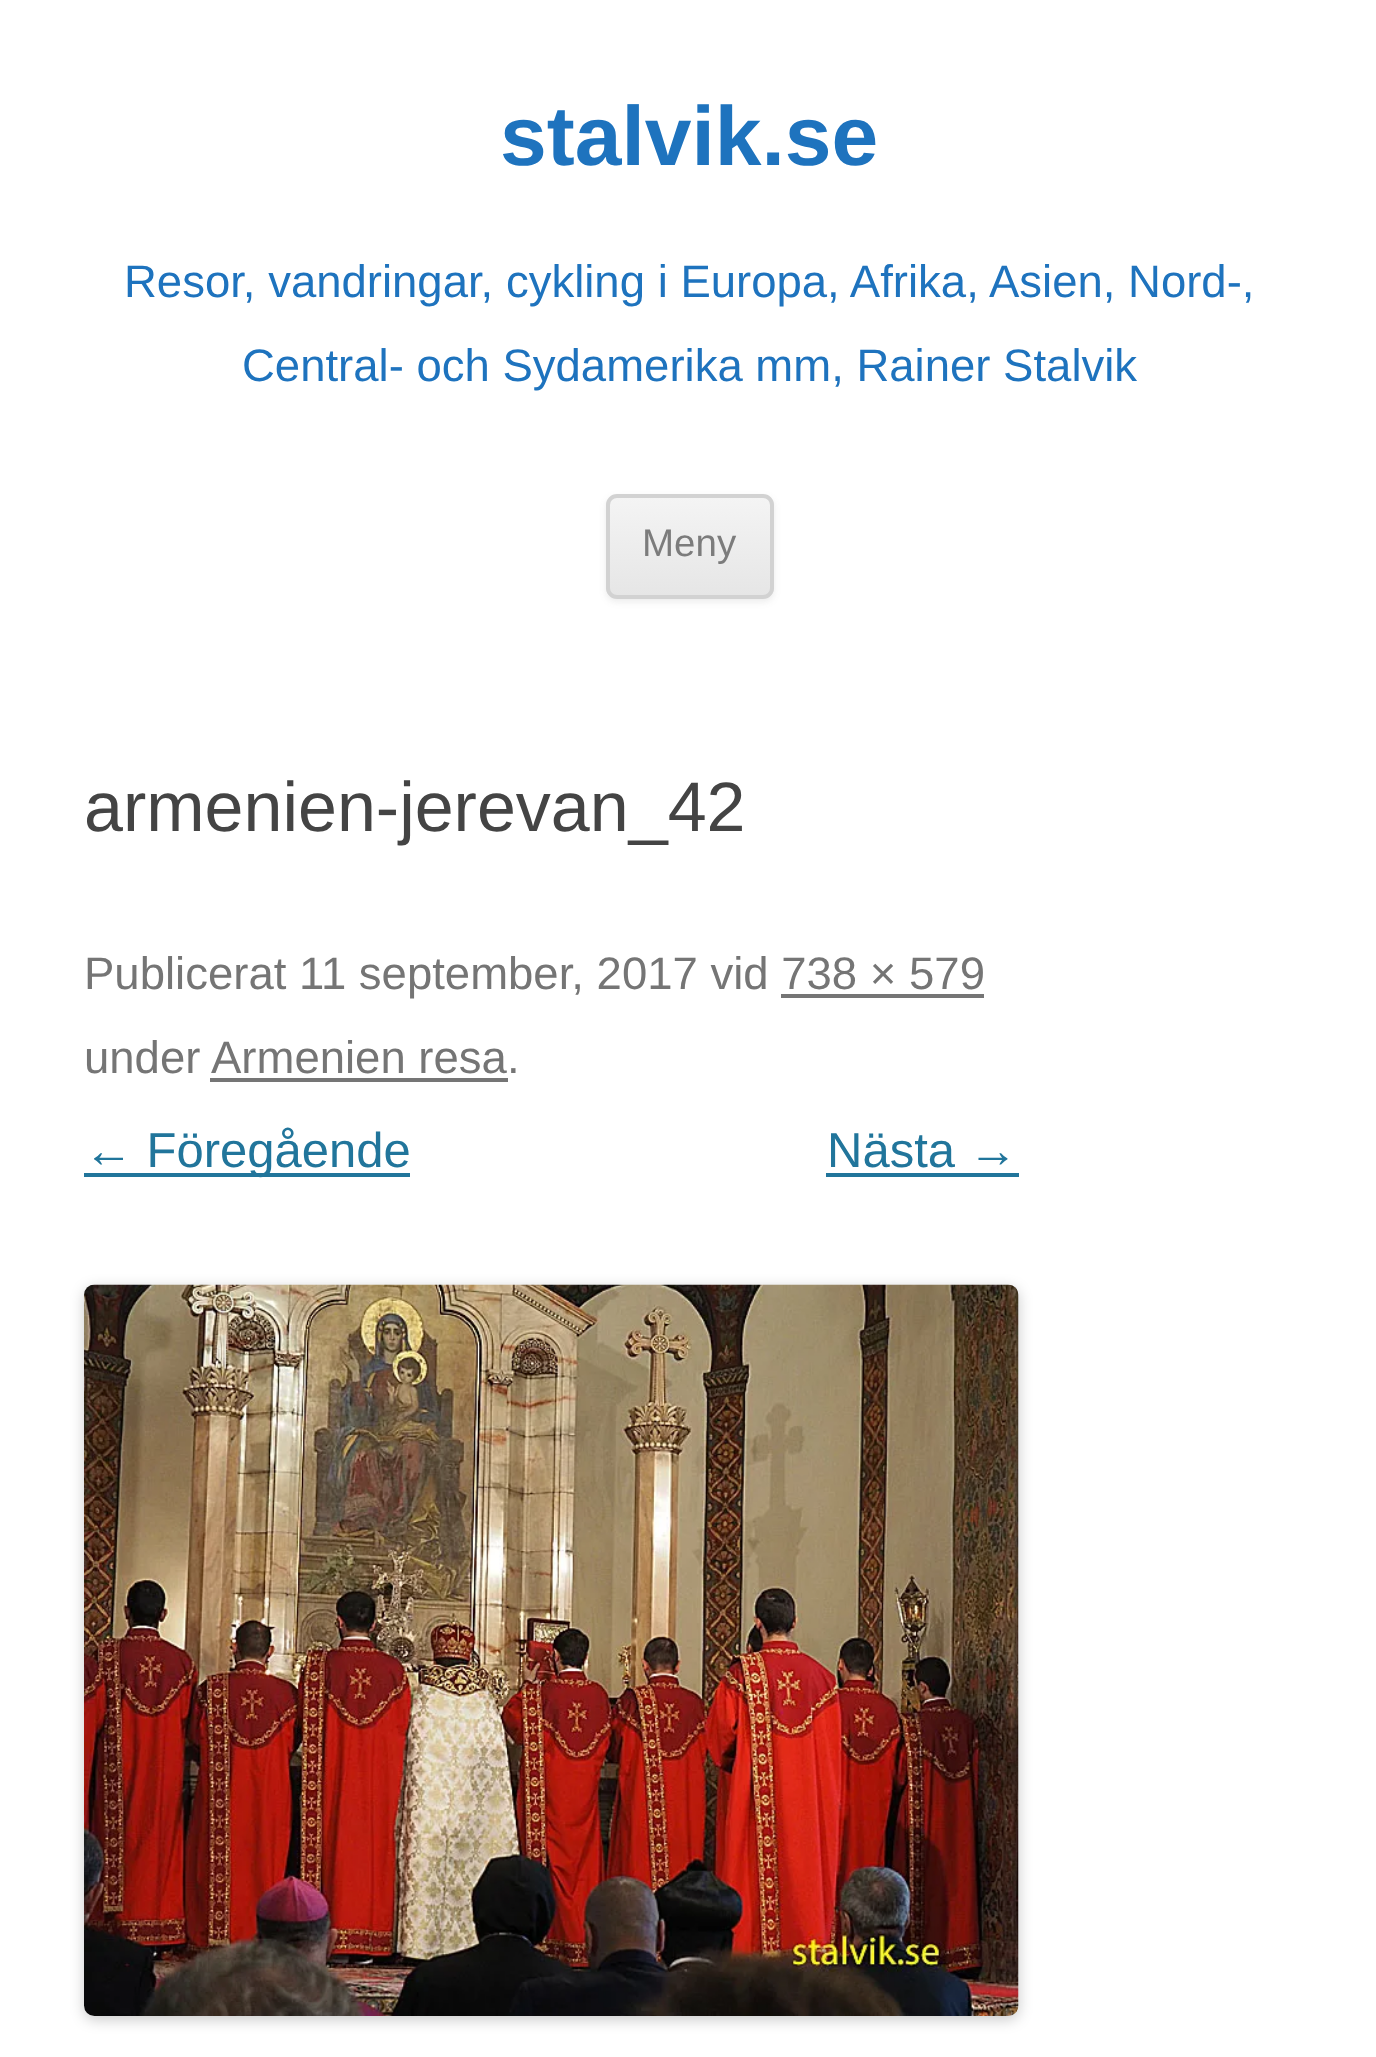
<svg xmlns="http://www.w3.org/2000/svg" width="1376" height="2057">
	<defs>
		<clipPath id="clip1"><rect x="606" y="494" width="168" height="105" rx="11" /></clipPath>
		<linearGradient id="g1" gradientUnits="userSpaceOnUse" x1="690" y1="497" x2="690" y2="595"><stop offset="0" stop-color="#F4F4F4" /><stop offset="1" stop-color="#E6E6E6" /></linearGradient>
	</defs>
	<rect width="100%" height="100%" fill="#FFFFFF" />
	<text x="500" y="165" font-family="Liberation Sans" font-size="84" font-weight="700" fill="#1E73BE">stalvik.se</text>
	<g font-family="Liberation Sans" font-size="45.5" fill="#1E73BE">
		<text x="124" y="297">Resor, vandringar, cykling i Europa, Afrika, Asien, Nord-,</text>
		<text x="242" y="381">Central- och Sydamerika mm, Rainer Stalvik</text>
	</g>
	<rect x="606" y="497" width="168" height="105" rx="11" fill="#404040" fill-opacity="0.1" filter="blur(3.5px)" />
	<g clip-path="url(#clip1)">
		<rect x="606" y="497" width="168" height="98" fill="url(#g1)" />
	</g>
	<rect x="608" y="496" width="164" height="101" rx="9" fill="none" stroke="#D2D2D2" stroke-width="4" />
	<text x="642" y="556" font-family="Liberation Sans" font-size="38.5" fill="#7C7C7C">Meny</text>
	<text x="84" y="831" font-family="Liberation Sans" font-size="70" fill="#444444">armenien-jerevan_42</text>
	<text x="84" y="989" font-family="Liberation Sans" font-size="45.5" fill="#757575">Publicerat 11 september, 2017 vid 738 × 579</text>
	<rect x="781" y="994" width="203" height="4" fill="#757575" />
	<g font-family="Liberation Sans" font-size="45.5" fill="#757575">
		<text x="84" y="1073">under</text>
		<text x="211" y="1073">Armenien resa.</text>
	</g>
	<rect x="210" y="1078" width="298" height="4" fill="#757575" />
	<rect x="84" y="1173" width="326" height="4" fill="#21759B" />
	<g font-family="Liberation Sans" font-size="49" fill="#21759B">
		<text x="84" y="1167">← Föregående</text>
		<text x="827" y="1167">Nästa →</text>
	</g>
	<rect x="826" y="1173" width="193" height="4" fill="#21759B" />
	<rect x="84" y="1288" width="935" height="732" rx="11" fill="#000000" fill-opacity="0.2" filter="blur(7px)" />
	<image x="84" y="1284" width="935" height="732" href="assets/img1.png" />
</svg>
